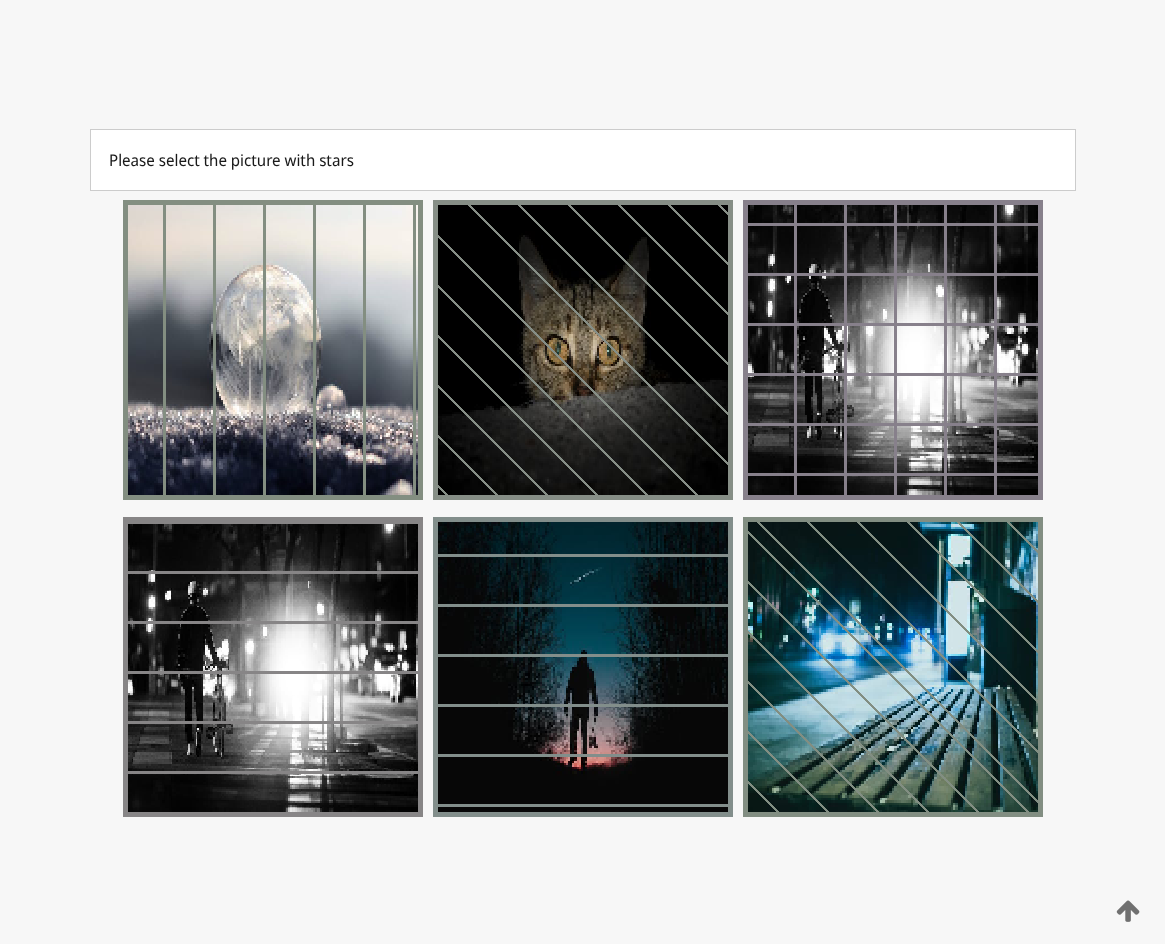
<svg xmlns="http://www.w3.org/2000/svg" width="1165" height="944">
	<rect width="100%" height="100%" fill="#F7F7F7" />
	<rect x="90.5" y="129.5" width="985" height="61" fill="#FFFFFF" stroke="#CCCCCC" />
	<text x="109" y="166" font-family="Noto Sans Display" font-size="16" fill="#1A1A1A">Please select the picture with stars</text>
	<image x="123" y="200" width="300" height="300" href="assets/img1.png" />
	<image x="433" y="200" width="300" height="300" href="assets/img2.png" />
	<image x="743" y="200" width="300" height="300" href="assets/img3.png" />
	<image x="123" y="517" width="300" height="300" href="assets/img4.png" />
	<image x="433" y="517" width="300" height="300" href="assets/img5.png" />
	<image x="743" y="517" width="300" height="300" href="assets/img6.png" />
	<image x="1116" y="900" width="24" height="22" href="assets/img7.png" />
</svg>
